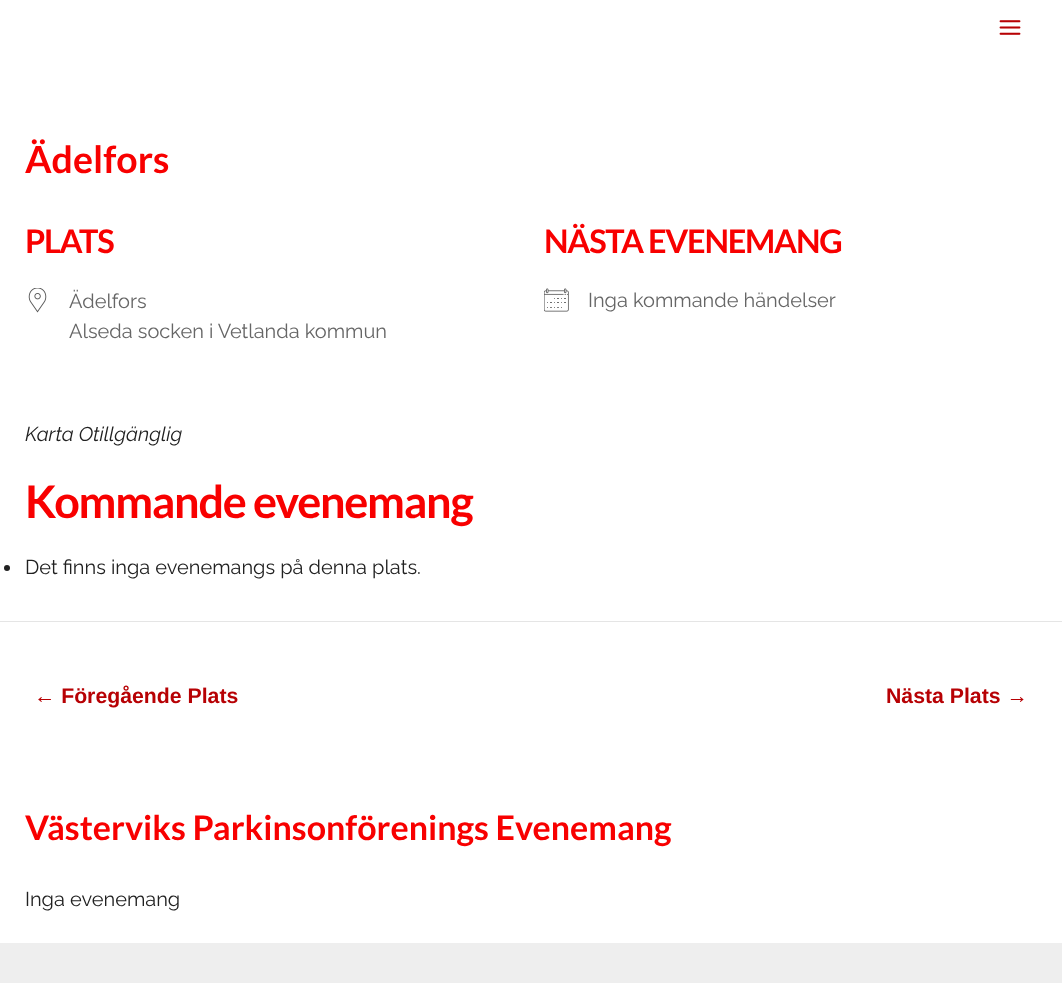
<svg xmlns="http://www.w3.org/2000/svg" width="1062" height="983">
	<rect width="100%" height="100%" fill="#FFFFFF" />
	<image x="999" y="20" width="22" height="15" href="assets/img1.png" />
	<text x="25" y="173" font-family="Lato" font-size="37.5" font-weight="700" fill="#F80000">Ädelfors</text>
	<text x="25" y="253" font-family="Lato" font-size="32.5" font-weight="700" letter-spacing="-1.25" fill="#F80000">PLATS</text>
	<image x="28" y="288" width="19" height="25" href="assets/img2.png" />
	<g font-family="Raleway" font-size="20" fill="#666666">
		<text x="69" y="308">Ädelfors</text>
		<text x="69" y="338">Alseda socken i Vetlanda kommun</text>
	</g>
	<text x="544" y="253" font-family="Lato" font-size="32.5" font-weight="700" letter-spacing="-1.25" fill="#F80000">NÄSTA EVENEMANG</text>
	<image x="544" y="288" width="25" height="24" href="assets/img3.png" />
	<text x="588" y="307" font-family="Raleway" font-size="20" fill="#666666">Inga kommande händelser</text>
	<text x="25" y="441" font-family="Raleway" font-size="20" font-style="italic" fill="#212121">Karta Otillgänglig</text>
	<text x="25" y="518" font-family="Lato" font-size="45" font-weight="700" letter-spacing="-1.25" fill="#F80000">Kommande evenemang</text>
	<circle cx="7" cy="568" r="3" fill="#212121" />
	<text x="25" y="574" font-family="Raleway" font-size="20" fill="#212121">Det finns inga evenemangs på denna plats.</text>
	<rect x="0" y="621" width="1062" height="1" fill="#E5E5E5" />
	<g font-family="Liberation Sans" font-size="21.25" font-weight="700" fill="#B70104">
		<text x="34" y="703">← Föregående Plats</text>
		<text x="886" y="703">Nästa Plats →</text>
	</g>
	<text x="25" y="840" font-family="Lato" font-size="34" font-weight="700" fill="#F80000">Västerviks Parkinsonförenings Evenemang</text>
	<text x="25" y="906" font-family="Raleway" font-size="20" fill="#212121">Inga evenemang</text>
	<rect x="0" y="943" width="1062" height="40" fill="#EEEEEE" />
</svg>
